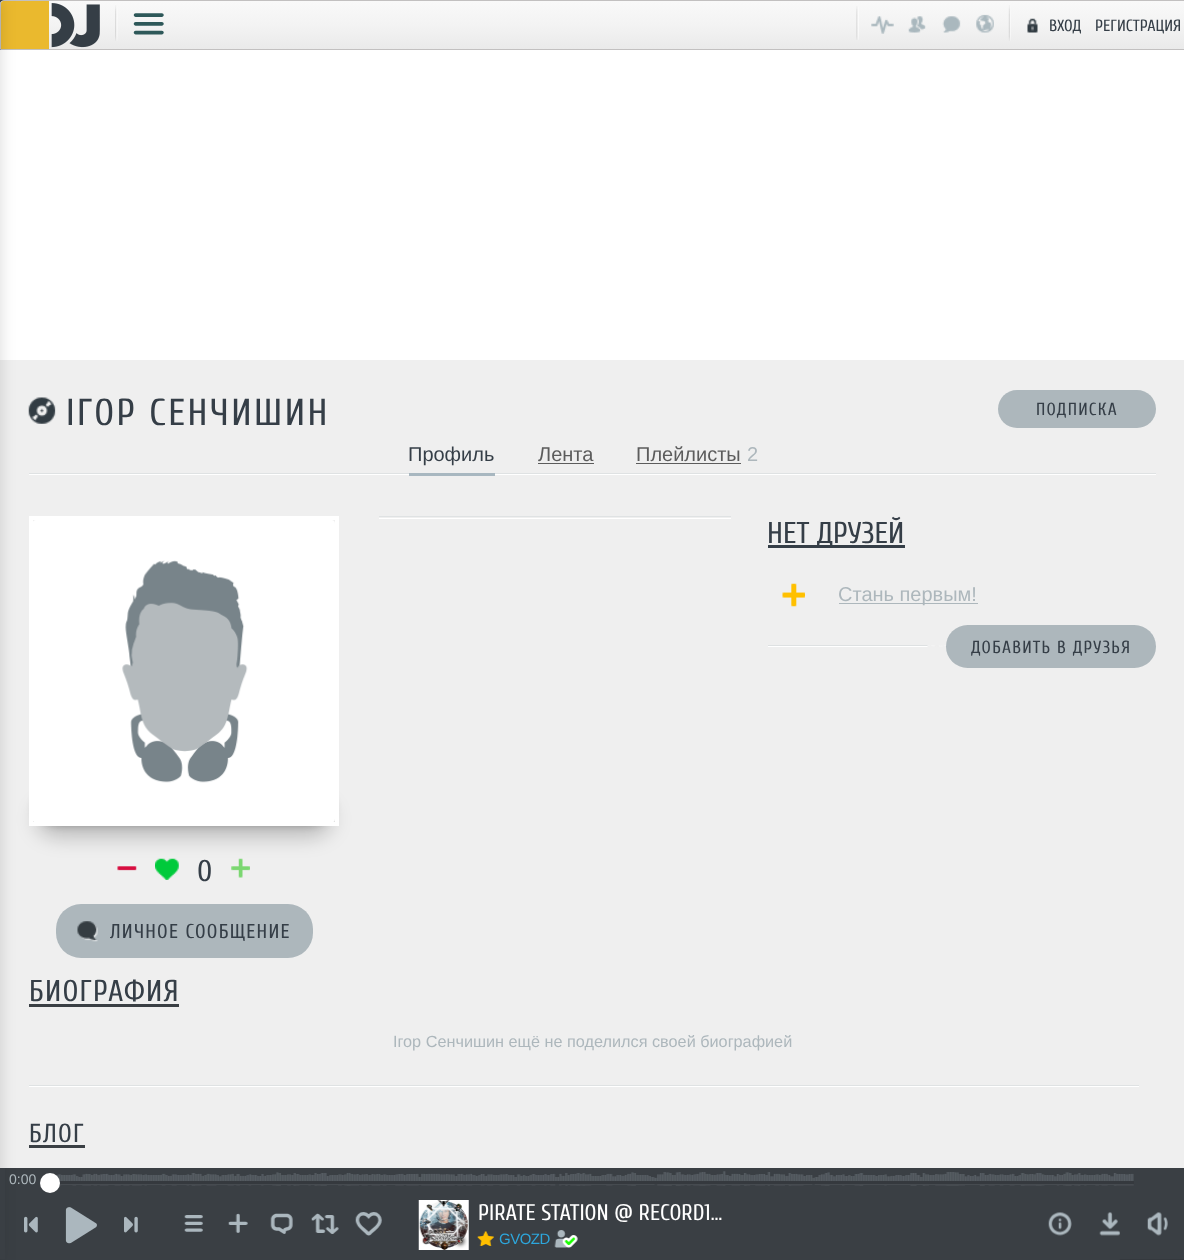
<svg xmlns="http://www.w3.org/2000/svg" width="1184" height="1260">
	<defs>
		<clipPath id="clip1"><path d="M4 0H1184C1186 0 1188 2 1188 4V50H0V4C0 2 2 0 4 0Z" /></clipPath>
		<linearGradient id="g1" gradientUnits="userSpaceOnUse" x1="594" y1="1.2" x2="594" y2="49"><stop offset="0" stop-color="#F9F9F9" /><stop offset="0.5" stop-color="#F3F3F3" /><stop offset="1" stop-color="#EAEAEA" /></linearGradient>
	</defs>
	<rect width="100%" height="100%" fill="#3A3F44" />
	<g clip-path="url(#clip1)">
		<rect x="0" y="1" width="1184" height="48" fill="url(#g1)" />
	</g>
	<path d="M4 .5H1184C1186 .5 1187.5 2 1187.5 4V49.5H.5V4C.5 2 2 .5 4 .5Z" fill="none" stroke="#C2C0C0" />
	<path d="M3.5 1H49V49H1V3.5C1 2 2 1 3.5 1Z" fill="#EAB92E" />
	<rect x="0" y="50" width="1184" height="310" fill="#FFFFFF" />
	<rect x="0" y="360" width="1184" height="808" fill="#EFEFEF" />
	<rect x="-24" y="0" width="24" height="1260" fill="#000000" fill-opacity="0.15" filter="blur(8px)" />
	<image x="51" y="3" width="49" height="45" href="assets/img1.png" />
	<image x="115" y="5" width="3" height="36" href="assets/img2.png" />
	<image x="133" y="13" width="31" height="22" href="assets/img3.png" />
	<image x="856" y="6" width="3" height="34" href="assets/img4.png" />
	<image x="871" y="16" width="23" height="18" href="assets/img5.png" />
	<image x="908" y="16" width="18" height="17" href="assets/img6.png" />
	<image x="942" y="16" width="19" height="17" href="assets/img7.png" />
	<image x="976" y="14" width="18" height="19" href="assets/img8.png" />
	<image x="1008" y="5" width="3" height="36" href="assets/img9.png" />
	<image x="1027" y="18" width="11" height="15" href="assets/img10.png" />
	<g font-family="Cuprum" font-size="16.25" fill="#353E47">
		<text x="1049" y="31">ВХОД</text>
		<text x="1095" y="31">РЕГИСТРАЦИЯ</text>
	</g>
	<image x="28" y="397" width="28" height="27" href="assets/img11.png" />
	<text x="66" y="425" font-family="Cuprum" font-size="37.5" letter-spacing="2.5" fill="#353E47">ІГОР СЕНЧИШИН</text>
	<rect x="998" y="390" width="158" height="38" rx="19" fill="#ADB7BC" />
	<text x="1036" y="415" font-family="Cuprum" font-size="17.5" letter-spacing="1.25" fill="#353E47">ПОДПИСКА</text>
	<text x="408" y="461" font-family="Liberation Sans" font-size="20" fill="#353E47">Профиль</text>
	<rect x="29" y="473" width="1127" height="1" fill="#DFE2E3" />
	<rect x="29" y="474" width="1127" height="1" fill="#FFFFFF" />
	<rect x="409" y="473" width="86" height="3" fill="#A8B7C0" />
	<text x="538" y="461" font-family="Liberation Sans" font-size="20" fill="#5C5C5C">Лента</text>
	<rect x="538" y="463" width="56" height="1" fill="#5C5C5C" />
	<text x="636" y="461" font-family="Liberation Sans" font-size="20" fill="#5C5C5C">Плейлисты</text>
	<rect x="636" y="463" width="105" height="1" fill="#5C5C5C" />
	<text x="747" y="461" font-family="Liberation Sans" font-size="20" fill="#ADB7BC">2</text>
	<rect x="379" y="516" width="352" height="1" fill="#DFE2E3" />
	<rect x="379" y="518" width="352" height="1" fill="#FFFFFF" />
	<rect x="768" y="545" width="137" height="3" fill="#353E47" />
	<text x="767" y="543" font-family="Cuprum" font-size="30" fill="#353E47">НЕТ ДРУЗЕЙ</text>
	<image x="782" y="583" width="23" height="24" href="assets/img12.png" />
	<rect x="839" y="603" width="139" height="1" fill="#ADB7BC" />
	<text x="838" y="601" font-family="Liberation Sans" font-size="20" fill="#ADB7BC">Стань первым!</text>
	<rect x="768" y="645" width="160" height="1" fill="#DEE1E2" />
	<rect x="768" y="646" width="160" height="1" fill="#FFFFFF" />
	<image x="927" y="645" width="229" height="2" href="assets/img13.png" />
	<rect x="946" y="625" width="210" height="43" rx="21.5" fill="#ADB7BC" />
	<text x="971" y="653" font-family="Cuprum" font-size="17.5" letter-spacing="1.25" fill="#353E47">ДОБАВИТЬ В ДРУЗЬЯ</text>
	<rect x="35" y="788" width="298" height="37" rx="26" fill="#000000" fill-opacity="0.3" filter="blur(4px)" />
	<rect x="35" y="800" width="298" height="38" rx="26" fill="#000000" fill-opacity="0.2" filter="blur(9.5px)" />
	<rect x="31" y="518" width="306" height="306" fill="none" stroke="#FFFFFF" stroke-width="4" />
	<image x="33" y="520" width="302" height="302" href="assets/img14.png" />
	<image x="117" y="866" width="20" height="5" href="assets/img15.png" />
	<image x="155" y="858" width="24" height="22" href="assets/img16.png" />
	<text x="197" y="881" font-family="Cuprum" font-size="30" fill="#353E47">0</text>
	<image x="231" y="858" width="19" height="20" href="assets/img17.png" />
	<rect x="56" y="904" width="257" height="54" rx="25" fill="#ADB7BC" />
	<image x="77" y="921" width="21" height="21" href="assets/img18.png" />
	<text x="110" y="938" font-family="Cuprum" font-size="20" letter-spacing="1.25" fill="#353E47">ЛИЧНОЕ СООБЩЕНИЕ</text>
	<text x="29" y="1001" font-family="Cuprum" font-size="30" letter-spacing="1.25" fill="#353E47">БИОГРАФИЯ</text>
	<rect x="29" y="1004" width="150" height="3" fill="#3A3F44" />
	<text x="393" y="1047" font-family="Liberation Sans" font-size="16.25" fill="#ADB7BC">Ігор Сенчишин ещё не поделился своей биографией</text>
	<rect x="29" y="1085" width="1110" height="1" fill="#DFE2E3" />
	<rect x="29" y="1086" width="1110" height="1" fill="#FFFFFF" />
	<text x="29" y="1142" font-family="Cuprum" font-size="26" letter-spacing="1.25" fill="#353E47">БЛОГ</text>
	<rect x="29" y="1145" width="56" height="3" fill="#3A3F44" />
	<rect x="0" y="1168" width="5" height="91" fill="#3A3F44" />
	<text x="9" y="1184" font-family="Liberation Sans" font-size="14" fill="#ADB7BC">0:00</text>
	<image x="56" y="1171" width="1078" height="15" href="assets/img19.png" />
	<rect x="51" y="1181" width="1083" height="3" fill="#35393E" />
	<circle cx="50" cy="1183" r="10" fill="#FFFFFF" />
	<image x="24" y="1216" width="14" height="17" href="assets/img20.png" />
	<image x="65" y="1207" width="32" height="37" href="assets/img21.png" />
	<image x="124" y="1216" width="14" height="17" href="assets/img22.png" />
	<image x="184" y="1215" width="19" height="17" href="assets/img23.png" />
	<image x="228" y="1213" width="20" height="20" href="assets/img24.png" />
	<image x="270" y="1213" width="23" height="21" href="assets/img25.png" />
	<image x="311" y="1213" width="28" height="21" href="assets/img26.png" />
	<image x="355" y="1212" width="27" height="24" href="assets/img27.png" />
	<image x="418" y="1200" width="51" height="50" href="assets/img28.png" />
	<text x="478" y="1220" font-family="Cuprum" font-size="22.5" fill="#FFFFFF">PIRATE STATION @ RECORD1…</text>
	<image x="477" y="1231" width="17" height="15" href="assets/img29.png" />
	<text x="499" y="1244" font-family="Liberation Sans" font-size="15" letter-spacing="-0.5" fill="#2DA7DD">GVOZD</text>
	<image x="554" y="1230" width="24" height="18" href="assets/img30.png" />
	<image x="1048" y="1212" width="24" height="24" href="assets/img31.png" />
	<image x="1099" y="1212" width="21" height="24" href="assets/img32.png" />
	<image x="1147" y="1212" width="21" height="24" href="assets/img33.png" />
	<path d="M1121.5 1259H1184.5C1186 1259 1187 1260 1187 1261.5V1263H1119V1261.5C1119 1260 1120 1259 1121.5 1259Z" fill="#35393E" />
</svg>
